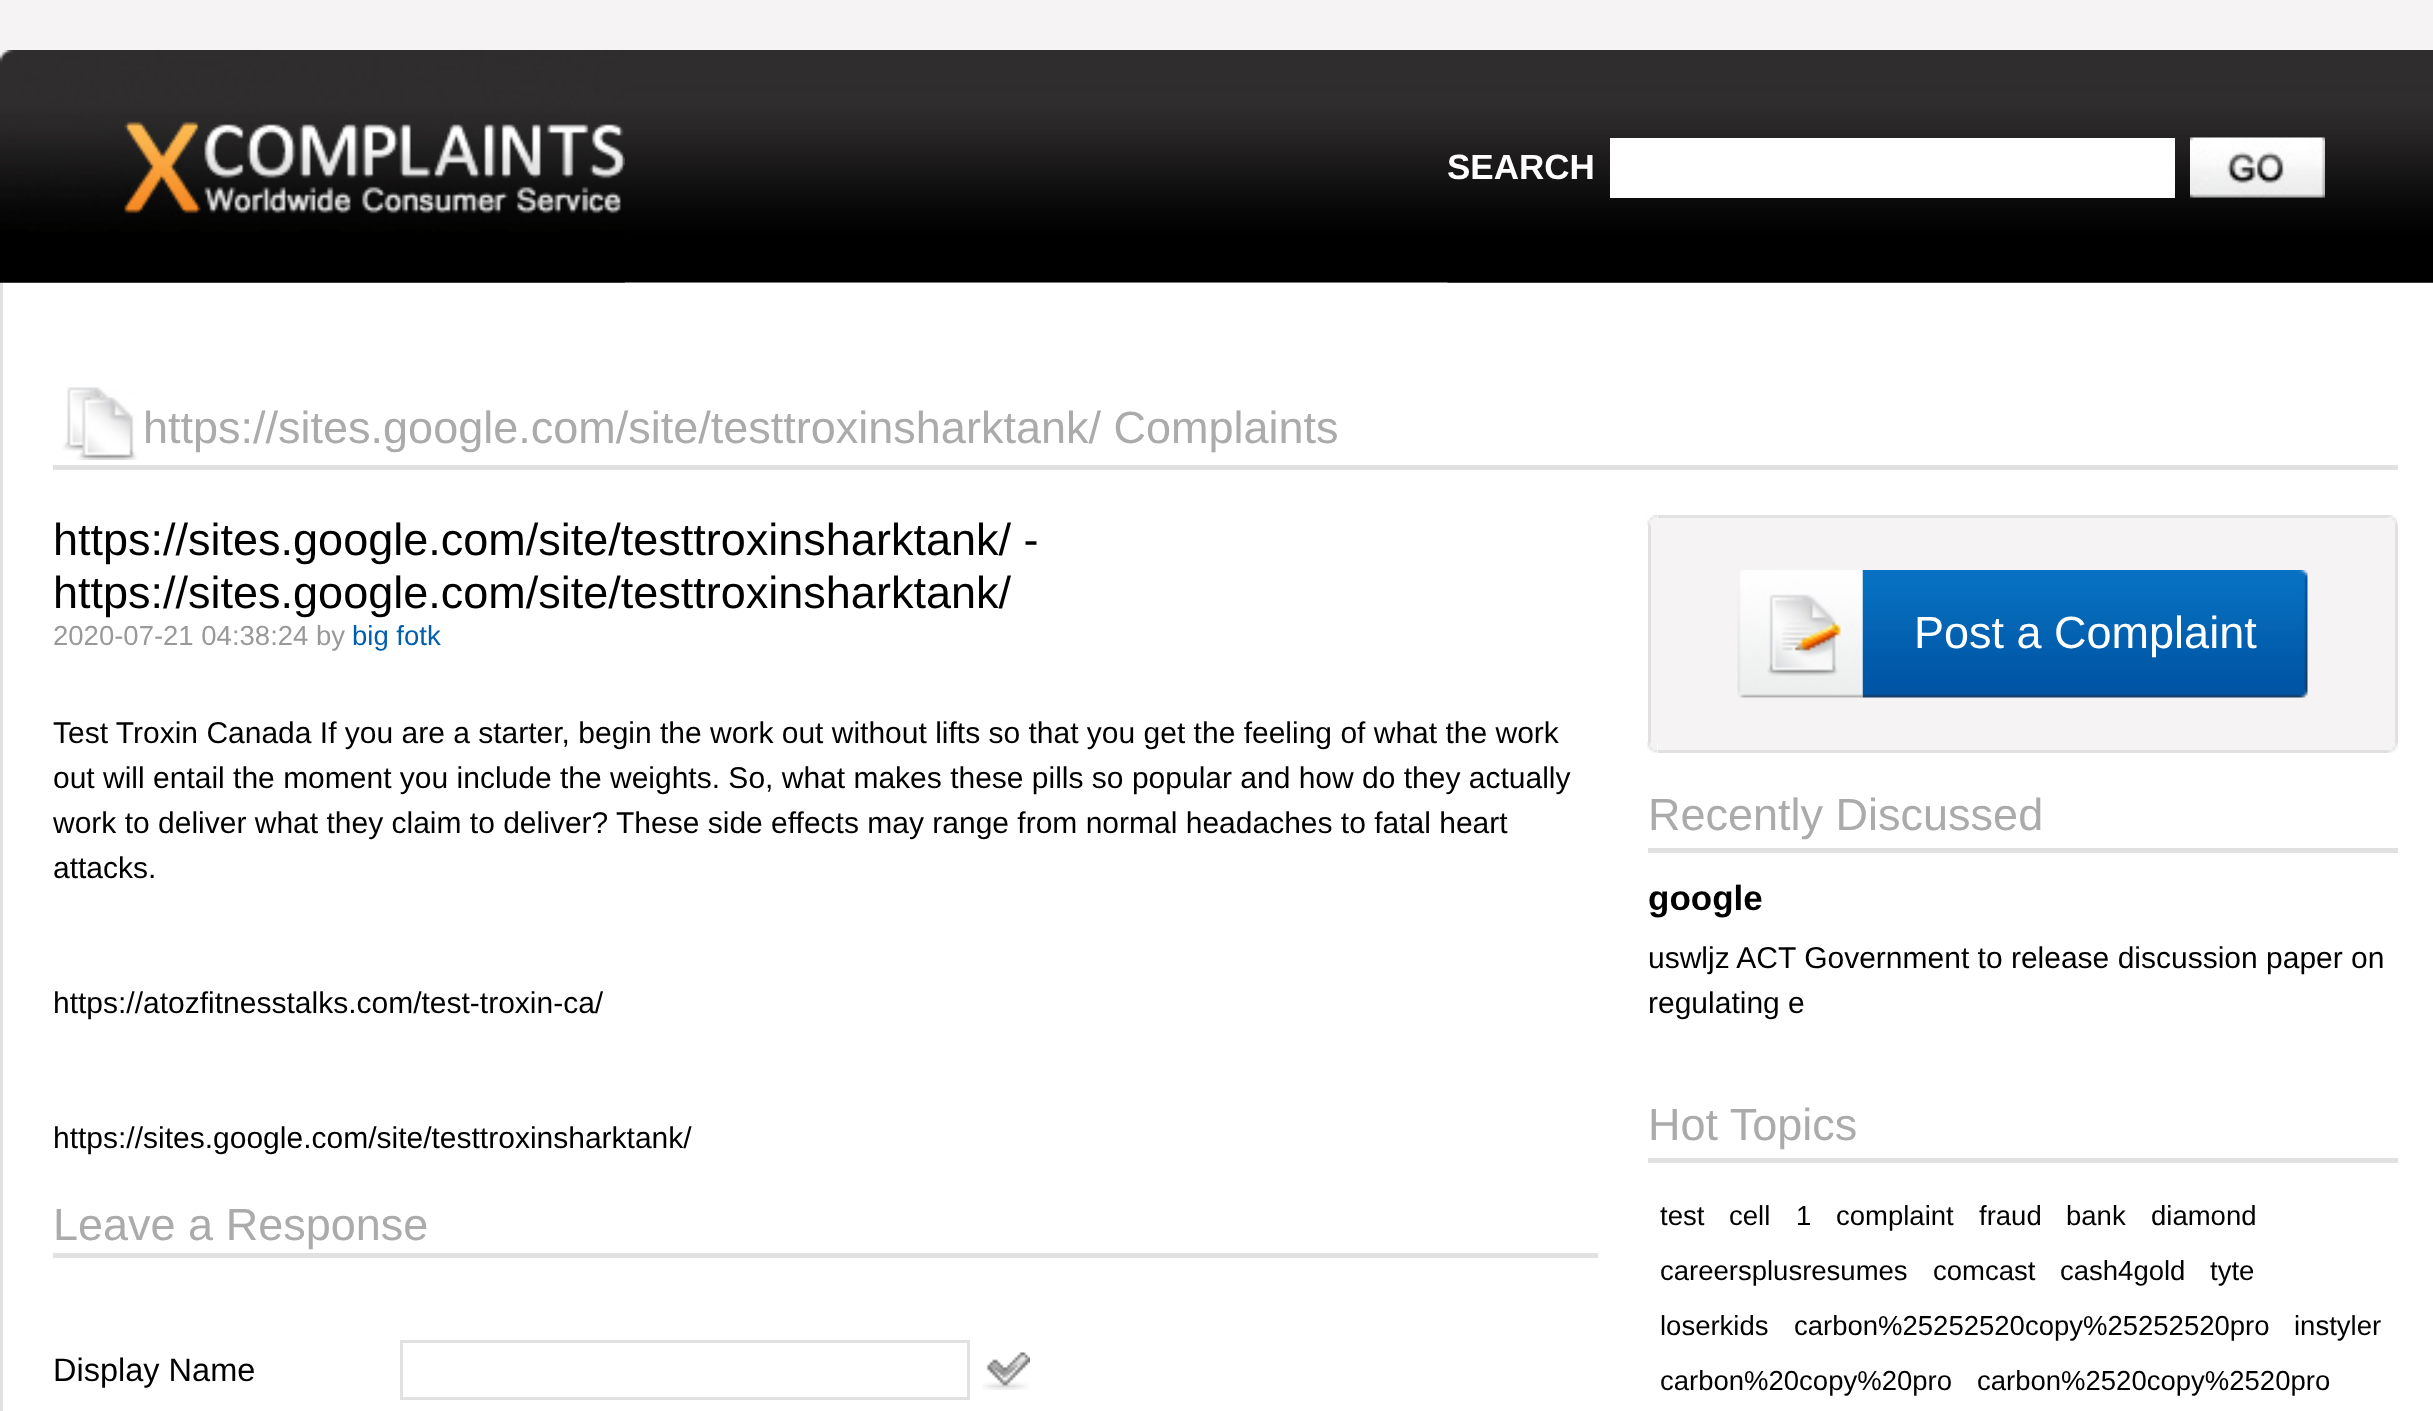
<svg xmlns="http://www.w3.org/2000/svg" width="2433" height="1411">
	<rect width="100%" height="100%" fill="#F5F3F4" />
	<image x="0" y="282" width="625" height="1" href="assets/img1.png" />
	<image x="0" y="50" width="625" height="233" href="assets/img2.png" />
	<image x="625" y="50" width="1808" height="233" href="assets/img3.png" />
	<image x="2190" y="137" width="135" height="61" href="assets/img4.png" />
	<image x="1447" y="282" width="163" height="1" href="assets/img5.png" />
	<text x="1447" y="179" font-family="Liberation Sans" font-size="35" font-weight="700" fill="#FFFFFF">SEARCH</text>
	<rect x="1610" y="282" width="823" height="1" fill="#3D3D3D" />
	<rect x="1610" y="138" width="565" height="60" fill="#FFFFFF" />
	<rect x="3" y="283" width="2430" height="1128" fill="#FFFFFF" />
	<rect x="0" y="283" width="3" height="1128" fill="#E1E1E1" />
	<rect x="53" y="465" width="2345" height="5" fill="#E1E1E1" />
	<image x="62" y="387" width="76" height="73" href="assets/img6.png" />
	<text x="143" y="443" font-family="Liberation Sans" font-size="45" fill="#ABABAB">https://sites.google.com/site/testtroxinsharktank/ Complaints</text>
	<g font-family="Liberation Sans" font-size="45" fill="#000000">
		<text x="53" y="555">https://sites.google.com/site/testtroxinsharktank/ -</text>
		<text x="53" y="608">https://sites.google.com/site/testtroxinsharktank/</text>
	</g>
	<text x="53" y="645" font-family="Liberation Sans" font-size="27.5" fill="#999999">2020-07-21 04:38:24 by</text>
	<text x="352" y="645" font-family="Liberation Sans" font-size="27.5" fill="#005EAE">big fotk</text>
	<g font-family="Liberation Sans" font-size="30" fill="#000000">
		<text x="53" y="743">Test Troxin Canada If you are a starter, begin the work out without lifts so that you get the feeling of what the work</text>
		<text x="53" y="788">out will entail the moment you include the weights. So, what makes these pills so popular and how do they actually</text>
		<text x="53" y="833">work to deliver what they claim to deliver? These side effects may range from normal headaches to fatal heart</text>
		<text x="53" y="878">attacks.</text>
		<text x="53" y="1013">https://atozfitnesstalks.com/test-troxin-ca/</text>
		<text x="53" y="1148">https://sites.google.com/site/testtroxinsharktank/</text>
	</g>
	<rect x="53" y="1253" width="1545" height="5" fill="#E1E1E1" />
	<text x="53" y="1240" font-family="Liberation Sans" font-size="45" fill="#ABABAB">Leave a Response</text>
	<text x="53" y="1381" font-family="Liberation Sans" font-size="32.5" fill="#000000">Display Name</text>
	<rect x="401.5" y="1341.5" width="567" height="57" fill="none" stroke="#E1E1E1" stroke-width="3" />
	<image x="982" y="1352" width="48" height="38" href="assets/img7.png" />
	<image x="1647" y="515" width="11" height="10" href="assets/img8.png" />
	<rect x="1658" y="518" width="730" height="7" fill="#F5F3F4" />
	<rect x="1658" y="515" width="730" height="3" fill="#E1E1E1" />
	<image x="2387" y="515" width="11" height="10" href="assets/img9.png" />
	<rect x="1651" y="525" width="744" height="218" fill="#F5F3F4" />
	<rect x="1648" y="525" width="3" height="218" fill="#E1E1E1" />
	<rect x="2395" y="525" width="3" height="218" fill="#E1E1E1" />
	<image x="1862" y="570" width="438" height="128" href="assets/img11.png" />
	<image x="1737" y="570" width="126" height="128" href="assets/img10.png" />
	<text x="1914" y="648" font-family="Liberation Sans" font-size="45" fill="#FFFFFF">Post a Complaint</text>
	<image x="2300" y="570" width="8" height="128" href="assets/img12.png" />
	<image x="1647" y="742" width="11" height="11" href="assets/img13.png" />
	<rect x="1658" y="743" width="730" height="7" fill="#F5F3F4" />
	<rect x="1658" y="750" width="730" height="3" fill="#E1E1E1" />
	<image x="2387" y="743" width="11" height="10" href="assets/img14.png" />
	<rect x="1648" y="848" width="750" height="5" fill="#E1E1E1" />
	<text x="1648" y="830" font-family="Liberation Sans" font-size="45" fill="#ABABAB">Recently Discussed</text>
	<text x="1648" y="910" font-family="Liberation Sans" font-size="35" font-weight="700" fill="#000000">google</text>
	<g font-family="Liberation Sans" font-size="30" fill="#000000">
		<text x="1648" y="968">uswljz ACT Government to release discussion paper on</text>
		<text x="1648" y="1013">regulating e</text>
	</g>
	<rect x="1648" y="1158" width="750" height="5" fill="#E1E1E1" />
	<text x="1648" y="1140" font-family="Liberation Sans" font-size="45" fill="#ABABAB">Hot Topics</text>
	<g font-family="Liberation Sans" font-size="27.5" fill="#000000">
		<text x="1660" y="1225">test</text>
		<text x="1729" y="1225">cell</text>
		<text x="1796" y="1225">1</text>
		<text x="1836" y="1225">complaint</text>
		<text x="1979" y="1225">fraud</text>
		<text x="2066" y="1225">bank</text>
		<text x="2151" y="1225">diamond</text>
		<text x="1660" y="1280">careersplusresumes</text>
		<text x="1933" y="1280">comcast</text>
		<text x="2060" y="1280">cash4gold</text>
		<text x="2210" y="1280">tyte</text>
		<text x="1660" y="1335">loserkids</text>
		<text x="1794" y="1335">carbon%25252520copy%25252520pro</text>
		<text x="2294" y="1335">instyler</text>
		<text x="1660" y="1390">carbon%20copy%20pro</text>
		<text x="1977" y="1390">carbon%2520copy%2520pro</text>
	</g>
</svg>
